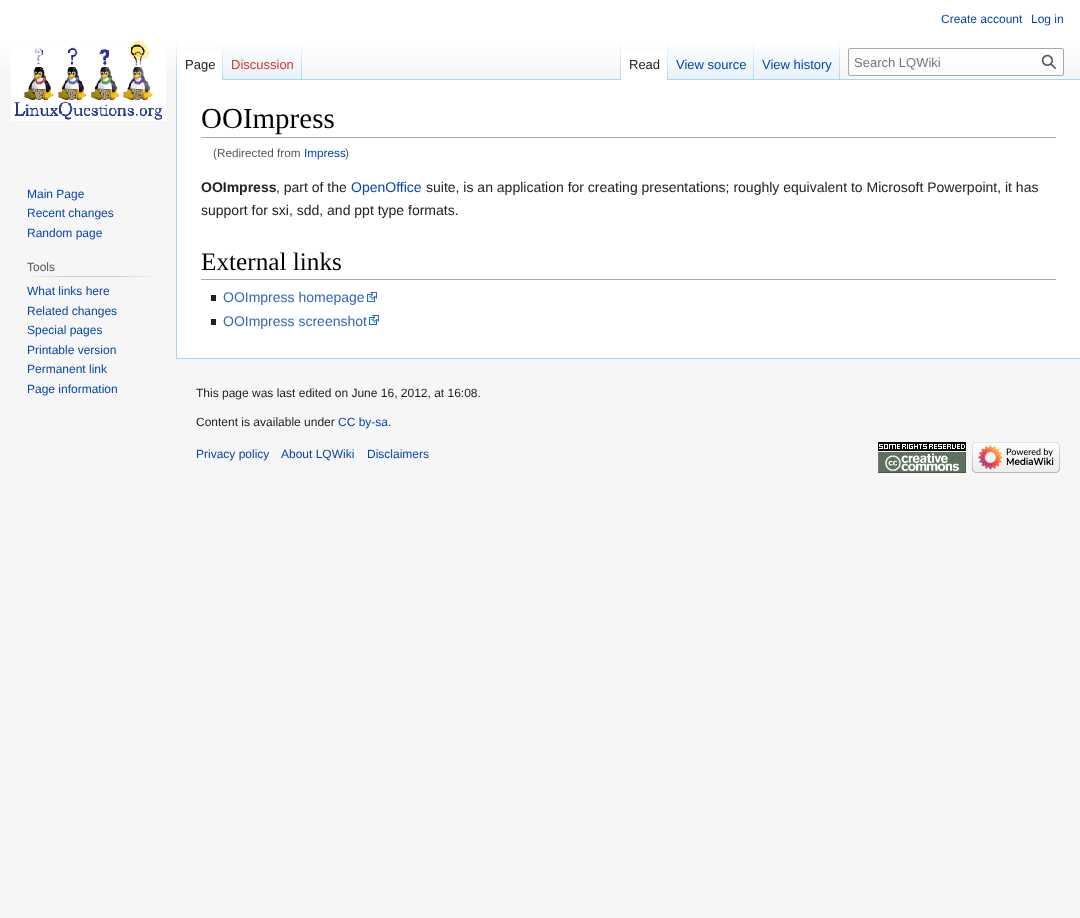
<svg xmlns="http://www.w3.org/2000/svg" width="1080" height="918">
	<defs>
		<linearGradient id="g1" gradientUnits="userSpaceOnUse" x1="540" y1="0" x2="540" y2="80"><stop offset="0.5" stop-color="#FFFFFF" /><stop offset="1" stop-color="#F6F6F6" /></linearGradient>
		<linearGradient id="g2" gradientUnits="userSpaceOnUse" x1="177" y1="40" x2="177" y2="80"><stop offset="0" stop-color="#A7D7F9" stop-opacity="0" /><stop offset="1" stop-color="#A7D7F9" /></linearGradient>
		<linearGradient id="g3" gradientUnits="userSpaceOnUse" x1="223" y1="40" x2="223" y2="80"><stop offset="0" stop-color="#FFFFFF" /><stop offset="1" stop-color="#A7D7F9" /></linearGradient>
		<linearGradient id="g4" gradientUnits="userSpaceOnUse" x1="263" y1="80" x2="263" y2="40"><stop offset="0" stop-color="#77C1F6" /><stop offset="0.03" stop-color="#E8F2F8" /><stop offset="1" stop-color="#FFFFFF" /></linearGradient>
		<linearGradient id="g5" gradientUnits="userSpaceOnUse" x1="302" y1="40" x2="302" y2="80"><stop offset="0" stop-color="#A7D7F9" stop-opacity="0" /><stop offset="1" stop-color="#A7D7F9" /></linearGradient>
		<linearGradient id="g6" gradientUnits="userSpaceOnUse" x1="621" y1="40" x2="621" y2="80"><stop offset="0" stop-color="#A7D7F9" stop-opacity="0" /><stop offset="1" stop-color="#A7D7F9" /></linearGradient>
		<linearGradient id="g7" gradientUnits="userSpaceOnUse" x1="668" y1="40" x2="668" y2="80"><stop offset="0" stop-color="#FFFFFF" /><stop offset="1" stop-color="#A7D7F9" /></linearGradient>
		<linearGradient id="g8" gradientUnits="userSpaceOnUse" x1="711" y1="80" x2="711" y2="40"><stop offset="0" stop-color="#77C1F6" /><stop offset="0.03" stop-color="#E8F2F8" /><stop offset="1" stop-color="#FFFFFF" /></linearGradient>
		<linearGradient id="g9" gradientUnits="userSpaceOnUse" x1="754" y1="40" x2="754" y2="80"><stop offset="0" stop-color="#A7D7F9" stop-opacity="0" /><stop offset="1" stop-color="#A7D7F9" /></linearGradient>
		<linearGradient id="g10" gradientUnits="userSpaceOnUse" x1="797" y1="80" x2="797" y2="40"><stop offset="0" stop-color="#77C1F6" /><stop offset="0.03" stop-color="#E8F2F8" /><stop offset="1" stop-color="#FFFFFF" /></linearGradient>
		<linearGradient id="g11" gradientUnits="userSpaceOnUse" x1="840" y1="40" x2="840" y2="80"><stop offset="0" stop-color="#A7D7F9" stop-opacity="0" /><stop offset="1" stop-color="#A7D7F9" /></linearGradient>
		<linearGradient id="g12" gradientUnits="userSpaceOnUse" x1="27" y1="277" x2="158" y2="277"><stop offset="0" stop-color="#F6F6F6" /><stop offset="0.33" stop-color="#C8CCD1" /><stop offset="0.66" stop-color="#C8CCD1" /><stop offset="1" stop-color="#F6F6F6" /></linearGradient>
	</defs>
	<rect width="100%" height="100%" fill="#F6F6F6" />
	<rect x="0" y="0" width="1080" height="69" fill="url(#g1)" />
	<g font-family="Liberation Sans" font-size="12" fill="#0645AD">
		<text x="941" y="23">Create account</text>
		<text x="1031" y="23">Log in</text>
	</g>
	<rect x="176" y="358" width="904" height="1" fill="#A7D7F9" />
	<rect x="176" y="79" width="1" height="280" fill="#A7D7F9" />
	<rect x="176" y="40" width="1" height="40" fill="url(#g2)" />
	<rect x="177" y="51" width="45" height="29" fill="#FFFFFF" />
	<rect x="222" y="40" width="1" height="40" fill="url(#g3)" />
	<text x="185" y="69" font-family="Liberation Sans" font-size="13" fill="#202122">Page</text>
	<rect x="223" y="46" width="79" height="34" fill="url(#g4)" />
	<rect x="301" y="40" width="1" height="40" fill="url(#g5)" />
	<text x="231" y="69" font-family="Liberation Sans" font-size="13" fill="#DD3333">Discussion</text>
	<rect x="302" y="79" width="778" height="1" fill="#A7D7F9" />
	<rect x="620" y="40" width="1" height="40" fill="url(#g6)" />
	<rect x="621" y="51" width="46" height="29" fill="#FFFFFF" />
	<rect x="667" y="40" width="1" height="40" fill="url(#g7)" />
	<text x="629" y="69" font-family="Liberation Sans" font-size="13" fill="#202122">Read</text>
	<rect x="668" y="46" width="86" height="33" fill="url(#g8)" />
	<rect x="753" y="40" width="1" height="40" fill="url(#g9)" />
	<text x="676" y="69" font-family="Liberation Sans" font-size="13" fill="#0645AD">View source</text>
	<rect x="754" y="46" width="86" height="33" fill="url(#g10)" />
	<rect x="839" y="40" width="1" height="40" fill="url(#g11)" />
	<text x="762" y="69" font-family="Liberation Sans" font-size="13" fill="#0645AD">View history</text>
	<rect x="848.5" y="48.5" width="215" height="27" rx="1.5" fill="#FFFFFF" fill-opacity="0.5" stroke="#A2A9B1" />
	<text x="854" y="67" font-family="Liberation Sans" font-size="13" fill="#72777D">Search LQWiki</text>
	<image x="1041" y="54" width="15" height="15" href="assets/img1.png" />
	<image x="11" y="41" width="155" height="80" href="assets/img2.png" />
	<g font-family="Liberation Sans" font-size="12" fill="#0645AD">
		<text x="27" y="198">Main Page</text>
		<text x="27" y="217">Recent changes</text>
		<text x="27" y="237">Random page</text>
	</g>
	<rect x="27" y="276" width="131" height="1" fill="url(#g12)" />
	<text x="27" y="271" font-family="Liberation Sans" font-size="12" fill="#54595D">Tools</text>
	<g font-family="Liberation Sans" font-size="12" fill="#0645AD">
		<text x="27" y="295">What links here</text>
		<text x="27" y="315">Related changes</text>
		<text x="27" y="334">Special pages</text>
		<text x="27" y="354">Printable version</text>
		<text x="27" y="373">Permanent link</text>
		<text x="27" y="393">Page information</text>
	</g>
	<rect x="177" y="80" width="903" height="278" fill="#FFFFFF" />
	<rect x="201" y="137" width="855" height="1" fill="#A2A9B1" />
	<text x="201" y="128" font-family="Liberation Serif" font-size="29" fill="#000000">OOImpress</text>
	<text x="213" y="157" font-family="Liberation Sans" font-size="11.75" fill="#54595D">(Redirected from</text>
	<text x="304" y="157" font-family="Liberation Sans" font-size="11.75" fill="#0645AD">Impress</text>
	<text x="345" y="157" font-family="Liberation Sans" font-size="11.75" fill="#54595D">)</text>
	<text x="201" y="192" font-family="Liberation Sans" font-size="14" font-weight="700" fill="#202122">OOImpress</text>
	<text x="276" y="192" font-family="Liberation Sans" font-size="14" fill="#202122">, part of the</text>
	<text x="351" y="192" font-family="Liberation Sans" font-size="14" fill="#0645AD">OpenOffice</text>
	<g font-family="Liberation Sans" font-size="14" fill="#202122">
		<text x="426" y="192">suite, is an application for creating presentations; roughly equivalent to Microsoft Powerpoint, it has</text>
		<text x="201" y="215">support for sxi, sdd, and ppt type formats.</text>
	</g>
	<rect x="201" y="279" width="855" height="1" fill="#A2A9B1" />
	<text x="201" y="270" font-family="Liberation Serif" font-size="25.25" fill="#000000">External links</text>
	<rect x="211" y="295" width="5" height="6" fill="#202122" />
	<text x="223" y="302" font-family="Liberation Sans" font-size="14" fill="#3366BB">OOImpress homepage</text>
	<image x="367" y="292" width="10" height="10" href="assets/img3.png" />
	<rect x="211" y="319" width="5" height="6" fill="#202122" />
	<text x="223" y="326" font-family="Liberation Sans" font-size="14" fill="#3366BB">OOImpress screenshot</text>
	<image x="369" y="315" width="10" height="10" href="assets/img3.png" />
	<g font-family="Liberation Sans" font-size="12" fill="#202122">
		<text x="196" y="397">This page was last edited on June 16, 2012, at 16:08.</text>
		<text x="196" y="426">Content is available under</text>
	</g>
	<text x="338" y="426" font-family="Liberation Sans" font-size="12" fill="#0645AD">CC by-sa</text>
	<text x="388" y="426" font-family="Liberation Sans" font-size="12" fill="#202122">.</text>
	<g font-family="Liberation Sans" font-size="12" fill="#0645AD">
		<text x="196" y="458">Privacy policy</text>
		<text x="281" y="458">About LQWiki</text>
		<text x="367" y="458">Disclaimers</text>
	</g>
	<image x="878" y="442" width="88" height="31" href="assets/img4.png" />
	<image x="972" y="442" width="88" height="31" href="assets/img5.png" />
</svg>
